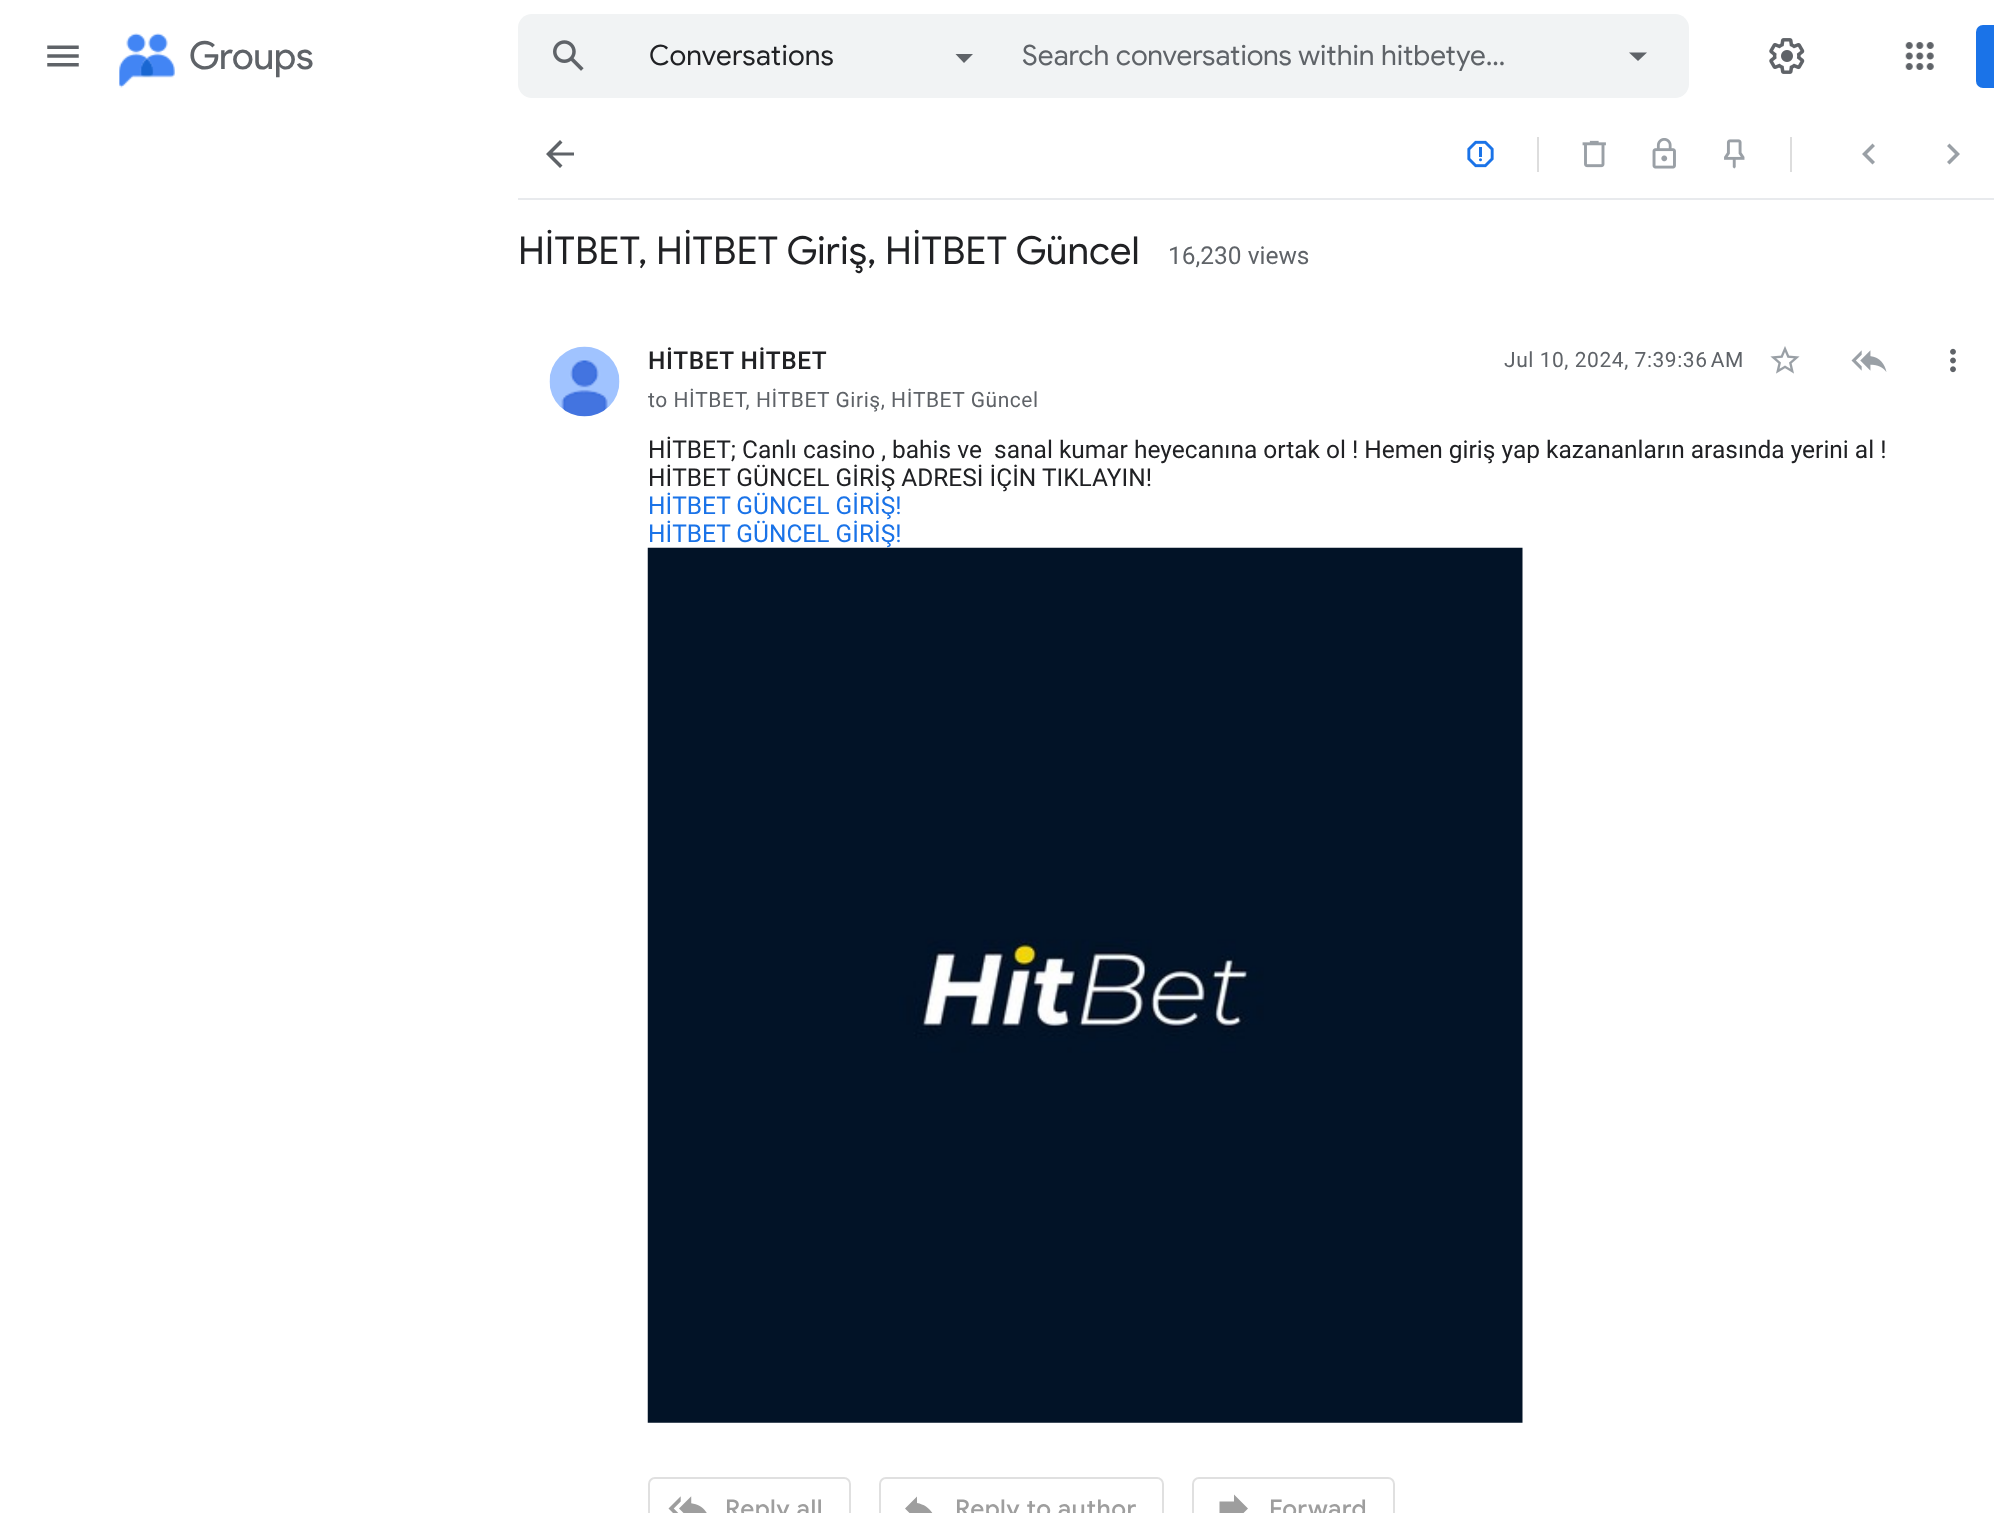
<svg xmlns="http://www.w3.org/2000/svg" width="1994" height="1513">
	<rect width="100%" height="100%" fill="#FFFFFF" />
	<image x="47" y="45" width="32" height="22" href="assets/img1.png" />
	<image x="119" y="33" width="56" height="55" href="assets/img2.png" />
	<text x="189" y="69" font-family="Product Sans" font-size="38.5" fill="#5F6368">Groups</text>
	<rect x="518" y="14" width="1171" height="84" rx="14" fill="#F1F3F4" />
	<image x="553" y="40" width="31" height="31" href="assets/img3.png" />
	<text x="649" y="65" font-family="Google Sans" font-size="28" letter-spacing="0.3" fill="#202124">Conversations</text>
	<path d="M955.5 54H973L964 63Z" fill="#5F6368" />
	<text x="1022" y="65" font-family="Google Sans" font-size="28" fill="#5F6368">Search conversations within hitbetye…</text>
	<path d="M1629 52.5L1638 61L1647 52.5Z" fill="#5F6368" />
	<image x="1769" y="38" width="36" height="36" href="assets/img4.png" />
	<image x="1905" y="42" width="29" height="28" href="assets/img5.png" />
	<rect x="1976" y="25" width="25" height="63" rx="7" fill="#1A73E8" />
	<rect x="518" y="198" width="1476" height="2" fill="#E8EAED" />
	<path d="M574 152.5V155.5H552.5L562.5 165.5L560 168L546 154L560 140L562.5 142.5L552.5 152.5Z" fill="#5F6368" />
	<image x="1467" y="140" width="27" height="28" href="assets/img6.png" />
	<rect x="1537" y="137" width="2" height="35" fill="#DDDDDD" />
	<image x="1582" y="140" width="24" height="28" href="assets/img7.png" />
	<image x="1652" y="138" width="24" height="31" href="assets/img8.png" />
	<image x="1724" y="139" width="21" height="30" href="assets/img9.png" />
	<rect x="1790" y="137" width="2" height="35" fill="#DDDDDD" />
	<path d="M1875 146L1867 154L1875 162L1872.5 164.5L1862 154L1872.5 143.5Z" fill="#9AA0A6" />
	<path d="M1949.5 143.5L1960 154L1949.5 164.5L1947 162L1955 154L1947 146Z" fill="#9AA0A6" />
	<text x="518" y="264" font-family="Google Sans" font-size="38.5" fill="#202124">HİTBET, HİTBET Giriş, HİTBET Güncel</text>
	<text x="1168" y="264" font-family="Roboto" font-size="24.5" fill="#5F6368">16,230 views</text>
	<image x="549" y="346" width="71" height="71" href="assets/img10.png" />
	<text x="648" y="369" font-family="Roboto" font-size="24.5" font-weight="500" letter-spacing="0.5" fill="#202124">HİTBET HİTBET</text>
	<text x="1504" y="367" font-family="Roboto" font-size="21" letter-spacing="0.55" fill="#5F6368">Jul 10, 2024, 7:39:36 AM</text>
	<image x="1770" y="346" width="30" height="28" href="assets/img11.png" />
	<image x="1851" y="350" width="36" height="22" href="assets/img12.png" />
	<image x="1950" y="348" width="6" height="25" href="assets/img13.png" />
	<text x="648" y="407" font-family="Roboto" font-size="21" letter-spacing="0.55" fill="#5F6368">to HİTBET, HİTBET Giriş, HİTBET Güncel</text>
	<g font-family="Roboto" font-size="24.5" fill="#202124">
		<text x="648" y="458" xml:space="preserve">HİTBET; Canlı casino , bahis ve  sanal kumar heyecanına ortak ol ! Hemen giriş yap kazananların arasında yerini al !</text>
		<text x="648" y="486">HİTBET GÜNCEL GİRİŞ ADRESİ İÇİN TIKLAYIN!</text>
	</g>
	<g font-family="Roboto" font-size="24.5" fill="#1A73E8">
		<text x="648" y="514">HİTBET GÜNCEL GİRİŞ!</text>
		<text x="648" y="542">HİTBET GÜNCEL GİRİŞ!</text>
	</g>
	<image x="647" y="547" width="876" height="876" href="assets/img14.png" />
	<rect x="649" y="1478" width="201" height="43" rx="6" fill="none" stroke="#E0E0E0" stroke-width="2" />
	<image x="668" y="1496" width="39" height="17" href="assets/img15.png" />
	<text x="725" y="1517" font-family="Google Sans" font-size="24.5" font-weight="500" letter-spacing="0.5" fill="#9E9E9E">Reply all</text>
	<rect x="880" y="1478" width="283" height="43" rx="6" fill="none" stroke="#E0E0E0" stroke-width="2" />
	<path d="M917 1503C927.5 1505 934 1512 936 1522.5C932 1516.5 925.5 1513.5 917 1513.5V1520.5L905 1508.5L917 1496.5Z" fill="#9E9E9E" />
	<text x="955" y="1517" font-family="Google Sans" font-size="24.5" font-weight="500" letter-spacing="0.5" fill="#9E9E9E">Reply to author</text>
	<rect x="1193" y="1478" width="201" height="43" rx="6" fill="none" stroke="#E0E0E0" stroke-width="2" />
	<path d="M1234 1501.5V1494.5L1248 1508.5L1234 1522.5V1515.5H1219.5V1501.5Z" fill="#9E9E9E" />
	<text x="1269" y="1517" font-family="Google Sans" font-size="24.5" font-weight="500" letter-spacing="0.5" fill="#9E9E9E">Forward</text>
</svg>
